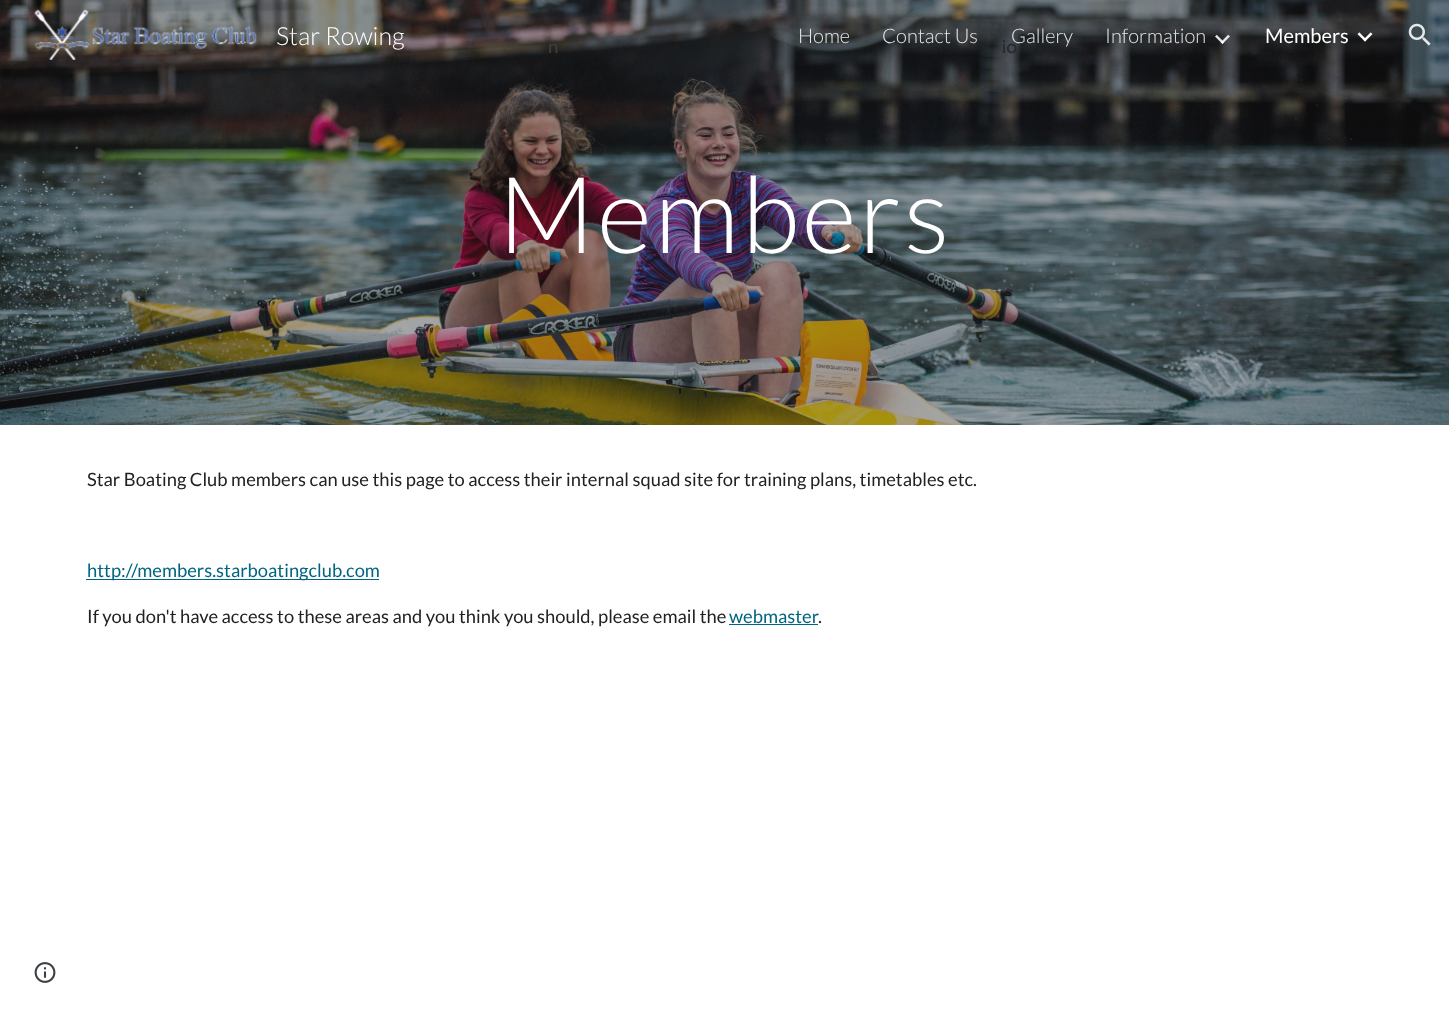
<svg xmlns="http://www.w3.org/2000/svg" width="1449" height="1015">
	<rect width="100%" height="100%" fill="#FFFFFF" />
	<image x="0" y="0" width="1449" height="425" href="assets/img5.png" />
	<image x="34" y="9" width="223" height="51" href="assets/img1.png" />
	<text x="276" y="45" font-family="Lato" font-size="25" font-weight="300" fill="#FFFFFF">Star Rowing</text>
	<g font-family="Lato" font-size="20" font-weight="300" fill="#E5E6E6">
		<text x="798" y="43">Home</text>
		<text x="882" y="43">Contact Us</text>
		<text x="1011" y="43">Gallery</text>
		<text x="1105" y="43">Information</text>
	</g>
	<image x="1215" y="34" width="15" height="10" href="assets/img2.png" />
	<text x="1265" y="43" font-family="Lato" font-size="20" fill="#FFFFFF">Members</text>
	<image x="1357" y="32" width="16" height="10" href="assets/img3.png" />
	<image x="1408" y="23" width="23" height="23" href="assets/img4.png" />
	<text x="498" y="253" font-family="Lato" font-size="106.5" font-weight="300" letter-spacing="2.5" fill="#FFFFFF">Members</text>
	<text x="87" y="486" font-family="Lato" font-size="18.35" fill="#212121">Star Boating Club members can use this page to access their internal squad site for training plans, timetables etc.</text>
	<rect x="86" y="579" width="293" height="1" fill="#006580" />
	<text x="87" y="577" font-family="Lato" font-size="18.35" fill="#006580">http://members.starboatingclub.com</text>
	<text x="87" y="623" font-family="Lato" font-size="18.35" fill="#212121">If you don't have access to these areas and you think you should, please email the</text>
	<text x="729" y="623" font-family="Lato" font-size="18.35" fill="#006580">webmaster</text>
	<rect x="729" y="624" width="89" height="1" fill="#006580" />
	<text x="818" y="623" font-family="Lato" font-size="18.35" fill="#212121">.</text>
	<image x="34" y="962" width="22" height="21" href="assets/img6.png" />
	<text x="548" y="53" font-family="Google Sans" font-size="18" font-weight="500" fill="#413A36">n</text>
	<text x="1002" y="53" font-family="Google Sans" font-size="18" font-weight="500" fill="#282C2F">io</text>
</svg>
